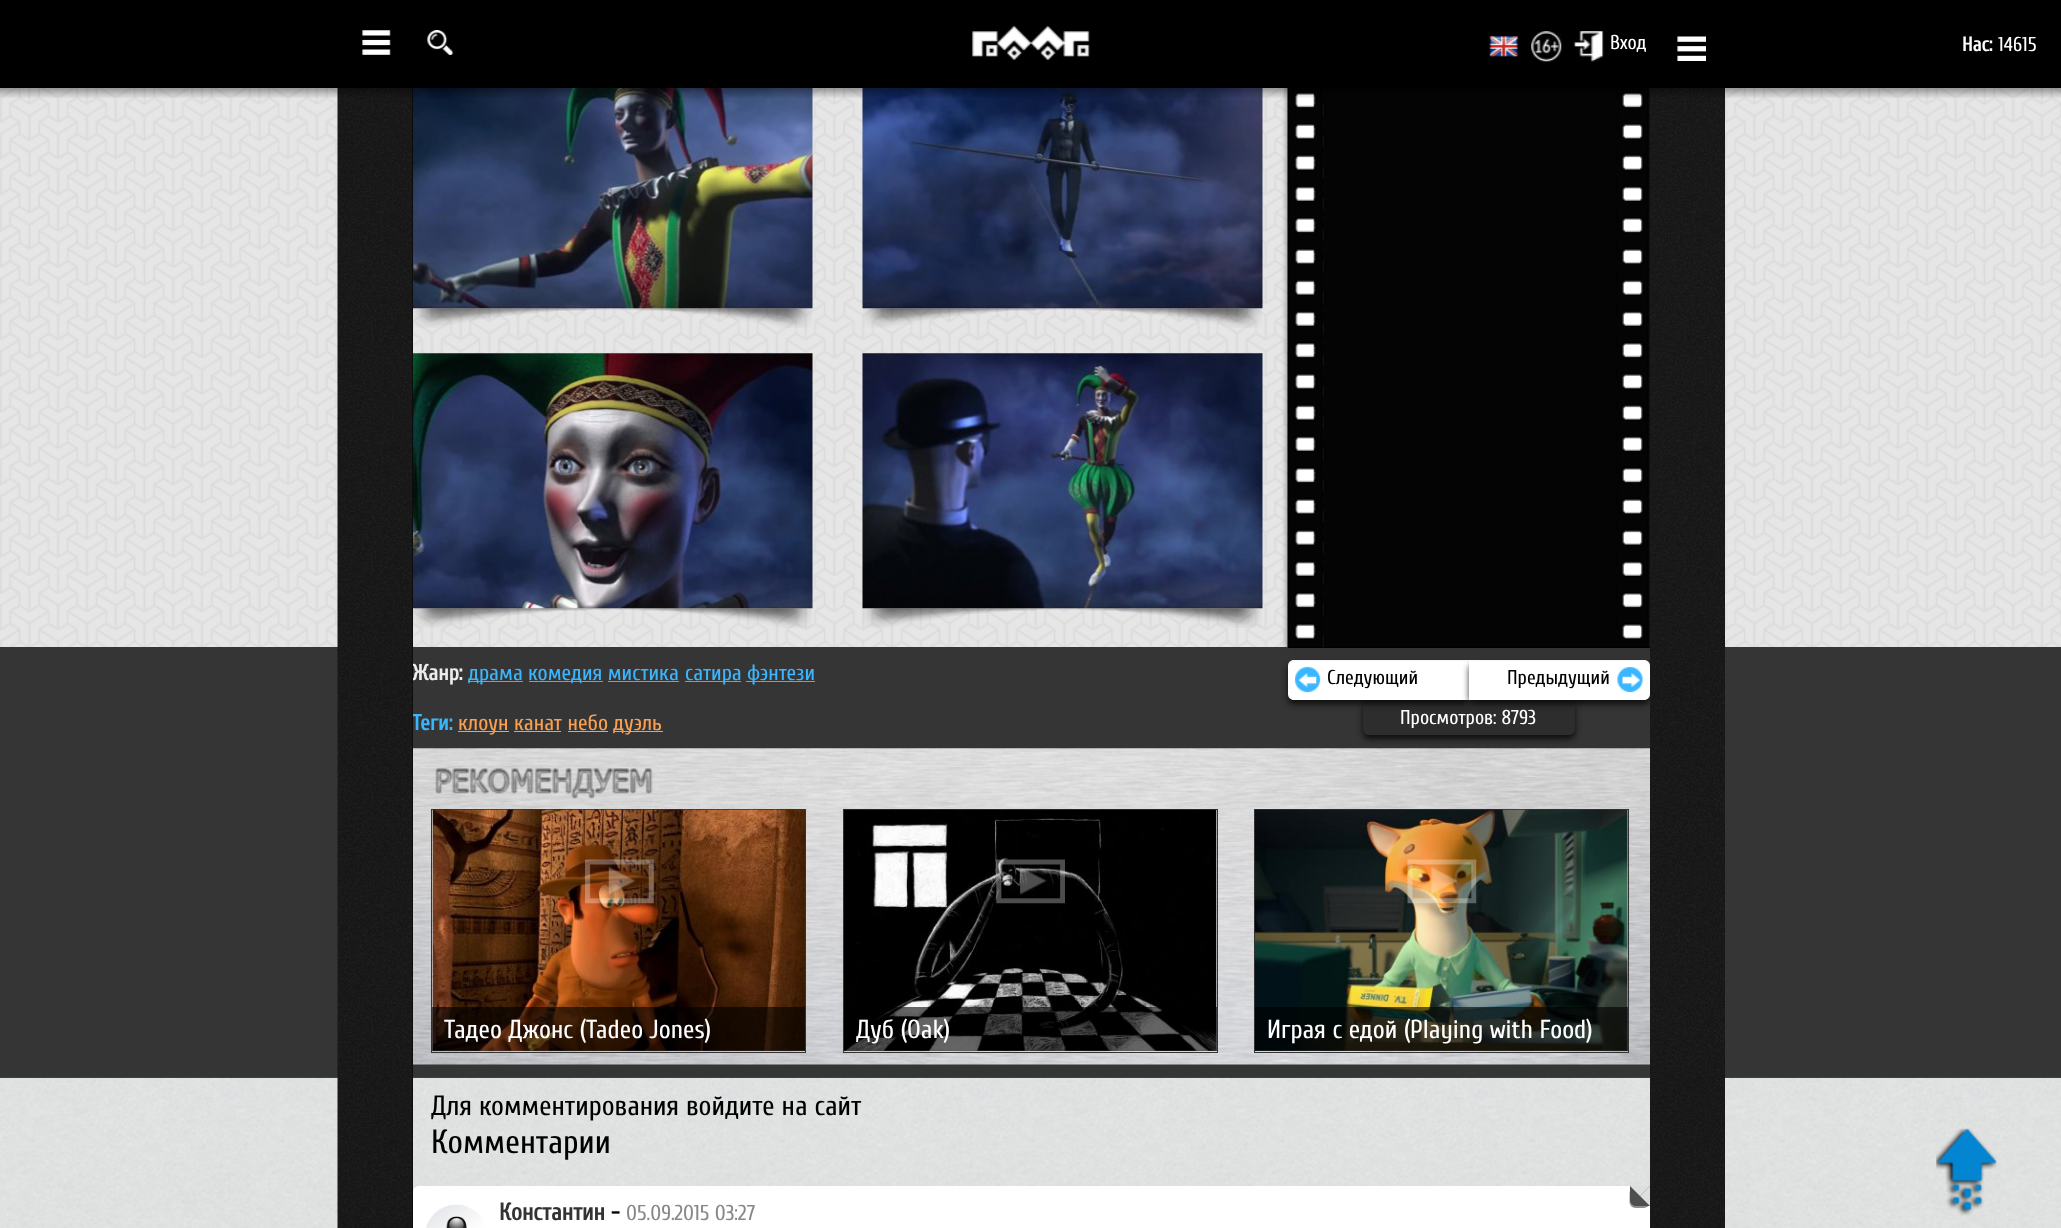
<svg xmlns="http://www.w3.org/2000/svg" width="2061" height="1228">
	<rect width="100%" height="100%" fill="#FFFFFF" />
	<image x="0" y="1078" width="2061" height="150" href="assets/img1.png" />
	<image x="0" y="88" width="2061" height="559" href="assets/img12.png" />
	<rect x="0" y="647" width="2061" height="430" fill="#353535" />
	<image x="413" y="748" width="1237" height="317" href="assets/img24.png" />
	<rect x="1363" y="704" width="212" height="35" rx="6" fill="#000000" fill-opacity="0.75" filter="blur(3px)" />
	<path d="M1363 700H1575V729C1575 732.5 1572.5 735 1569 735H1369C1365.5 735 1363 732.5 1363 729Z" fill="#2D2D2D" />
	<rect x="1288" y="664" width="181" height="40" rx="6" fill="#000000" fill-opacity="0.75" filter="blur(3px)" />
	<path d="M1294 660H1469V700H1294C1290.5 700 1288 697.5 1288 694V666C1288 662.5 1290.5 660 1294 660Z" fill="#FFFFFF" />
	<rect x="1469" y="664" width="181" height="40" rx="6" fill="#000000" fill-opacity="0.75" filter="blur(3px)" />
	<path d="M1469 660H1644C1647.5 660 1650 662.5 1650 666V694C1650 697.5 1647.5 700 1644 700H1469Z" fill="#FFFFFF" />
	<rect x="1288" y="-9" width="362" height="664" fill="#323232" fill-opacity="0.75" filter="blur(3px)" />
	<rect x="0" y="0" width="2061" height="88" fill="#000000" />
	<image x="362" y="30" width="29" height="25" href="assets/img2.png" />
	<image x="427" y="30" width="27" height="25" href="assets/img3.png" />
	<image x="972" y="26" width="118" height="34" href="assets/img4.png" />
	<image x="1489" y="36" width="30" height="21" href="assets/img5.png" />
	<image x="1531" y="31" width="31" height="31" href="assets/img6.png" />
	<image x="1573" y="31" width="31" height="31" href="assets/img7.png" />
	<text x="1610" y="49" font-family="Cuprum" font-size="20" fill="#FFFFFF">Вход</text>
	<image x="1677" y="36" width="29" height="25" href="assets/img8.png" />
	<text x="1962" y="51" font-family="Cuprum" font-size="20" font-weight="700" fill="#FFFFFF">Нас:</text>
	<text x="1998" y="51" font-family="Cuprum" font-size="20" fill="#FFFFFF">14615</text>
	<rect x="0" y="1077" width="2061" height="1" fill="#404040" />
	<text x="412" y="680" font-family="Cuprum" font-size="22" font-weight="700" fill="#EDEDED">Жанр:</text>
	<text x="412" y="730" font-family="Cuprum" font-size="22" font-weight="700" fill="#39B6FF">Теги:</text>
	<rect x="412" y="88" width="1" height="1140" fill="#000000" />
	<image x="337" y="88" width="76" height="1140" href="assets/img10.png" />
	<path d="M419 1186H1650V1228C1650 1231.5 1647.5 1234 1644 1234H419C415.5 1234 413 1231.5 413 1228V1192C413 1188.5 415.5 1186 419 1186Z" fill="#FFFFFF" />
	<rect x="1629" y="1188" width="20" height="20" rx="6" fill="#000000" fill-opacity="0.2" filter="blur(0.5px)" />
	<rect x="1630" y="1188" width="20" height="20" rx="6" fill="#000000" fill-opacity="0.3" filter="blur(0.5px)" />
	<image x="1650" y="88" width="75" height="1140" href="assets/img11.png" />
	<image x="413" y="88" width="400" height="221" href="assets/img13.png" />
	<image x="862" y="88" width="401" height="221" href="assets/img15.png" />
	<image x="1287" y="88" width="363" height="559" href="assets/img21.png" />
	<image x="0" y="88" width="2061" height="10" href="assets/img9.png" />
	<image x="413" y="308" width="399" height="20" href="assets/img14.png" />
	<image x="863" y="308" width="399" height="20" href="assets/img16.png" />
	<image x="413" y="353" width="400" height="256" href="assets/img17.png" />
	<image x="413" y="608" width="399" height="20" href="assets/img18.png" />
	<image x="862" y="353" width="401" height="256" href="assets/img19.png" />
	<image x="863" y="608" width="399" height="20" href="assets/img20.png" />
	<rect x="1288" y="647" width="362" height="1" fill="#000000" />
	<rect x="468" y="681" width="55" height="1" fill="#39B6FF" />
	<text x="468" y="680" font-family="Cuprum" font-size="22" fill="#39B6FF">драма</text>
	<rect x="529" y="681" width="74" height="1" fill="#39B6FF" />
	<text x="528" y="680" font-family="Cuprum" font-size="22" fill="#39B6FF">комедия мистика</text>
	<rect x="685" y="681" width="56" height="1" fill="#39B6FF" />
	<text x="685" y="680" font-family="Cuprum" font-size="22" fill="#39B6FF">сатира</text>
	<rect x="746" y="681" width="69" height="1" fill="#39B6FF" />
	<text x="747" y="680" font-family="Cuprum" font-size="22" fill="#39B6FF">фэнтези</text>
	<rect x="608" y="681" width="71" height="1" fill="#39B6FF" />
	<image x="1294" y="666" width="27" height="27" href="assets/img22.png" />
	<g font-family="Cuprum" font-size="20" fill="#000000">
		<text x="1327" y="684">Следующий</text>
		<text x="1507" y="684">Предыдущий</text>
	</g>
	<image x="1617" y="666" width="26" height="27" href="assets/img23.png" />
	<text x="1400" y="724" font-family="Cuprum" font-size="20" fill="#FFFFFF">Просмотров: 8793</text>
	<rect x="458" y="731" width="51" height="1" fill="#F7A053" />
	<text x="458" y="730" font-family="Cuprum" font-size="22" fill="#F7A053">клоун канат небо</text>
	<rect x="614" y="731" width="49" height="1" fill="#F7A053" />
	<text x="613" y="730" font-family="Cuprum" font-size="22" fill="#F7A053">дуэль</text>
	<rect x="514" y="731" width="47" height="1" fill="#F7A053" />
	<rect x="568" y="731" width="40" height="1" fill="#F7A053" />
	<image x="435" y="768" width="218" height="31" href="assets/img25.png" />
	<rect x="431.5" y="809.5" width="374" height="243" fill="none" stroke="#333333" />
	<image x="432" y="809" width="373" height="242" href="assets/img26.png" />
	<image x="585" y="859" width="69" height="45" href="assets/img27.png" />
	<rect x="432" y="1007" width="373" height="44" fill="#000000" fill-opacity="0.6" />
	<text x="444" y="1038" font-family="Cuprum" font-size="26" fill="#FFFFFF">Тадео Джонс (Tadeo Jones)</text>
	<rect x="843.5" y="809.5" width="374" height="243" fill="none" stroke="#333333" />
	<image x="844" y="809" width="373" height="242" href="assets/img28.png" />
	<image x="996" y="859" width="69" height="45" href="assets/img29.png" />
	<rect x="844" y="1007" width="373" height="44" fill="#000000" fill-opacity="0.6" />
	<text x="856" y="1038" font-family="Cuprum" font-size="26" fill="#FFFFFF">Дуб (Oak)</text>
	<rect x="1254.5" y="809.5" width="374" height="243" fill="none" stroke="#333333" />
	<image x="1255" y="809" width="373" height="242" href="assets/img30.png" />
	<image x="1407" y="859" width="70" height="45" href="assets/img31.png" />
	<rect x="1255" y="1007" width="373" height="44" fill="#000000" fill-opacity="0.6" />
	<text x="1267" y="1038" font-family="Cuprum" font-size="26" fill="#FFFFFF">Играя с едой (Playing with Food)</text>
	<text x="431" y="1115" font-family="Cuprum" font-size="28" fill="#000000">Для комментирования войдите на сайт</text>
	<text x="431" y="1153" font-family="Cuprum" font-size="33.5" fill="#000000">Комментарии</text>
	<image x="426" y="1204" width="58" height="24" href="assets/img32.png" />
	<text x="499" y="1220" font-family="Cuprum" font-size="24" font-weight="700" fill="#333333">Константин</text>
	<text x="611" y="1220" font-family="Cuprum" font-size="24" font-weight="700" fill="#000000">-</text>
	<text x="626" y="1220" font-family="Cuprum" font-size="21.5" fill="#898889">05.09.2015 03:27</text>
	<path d="M1630 1186H1650V1206H1636C1632.5 1206 1630 1203.5 1630 1200Z" fill="#4E4E4E" />
	<path d="M1630 1186L1640 1196L1650 1186Z" fill="#DDDFDE" />
	<path d="M1650 1186L1640 1196L1650 1206Z" fill="#DDDFDE" />
	<image x="1936" y="1128" width="61" height="88" href="assets/img33.png" />
</svg>
